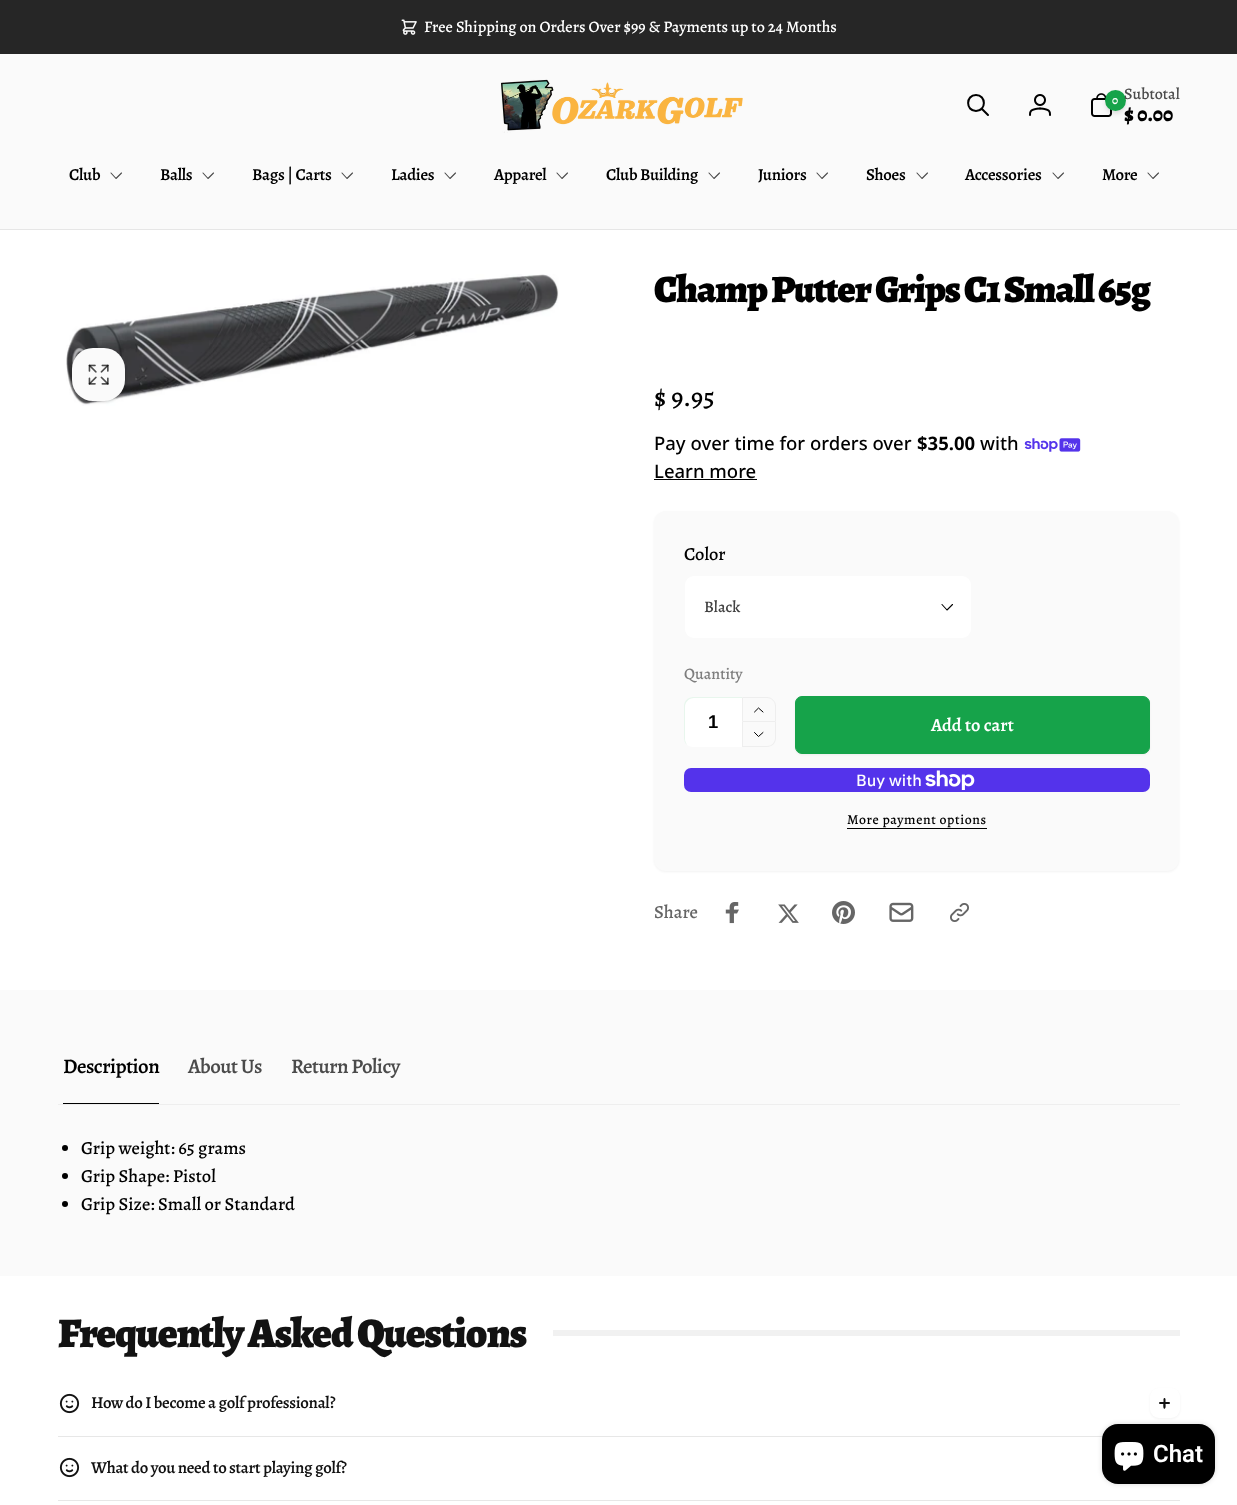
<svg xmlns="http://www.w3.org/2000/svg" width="1237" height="1505">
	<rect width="100%" height="100%" fill="#FAFAFA" />
	<rect x="0" y="0" width="1237" height="54" fill="#262626" />
	<image x="401" y="19" width="16" height="16" href="assets/img1.png" />
	<text x="424" y="32" font-family="Alegreya" font-size="16.1" font-weight="500" fill="#FFFFFF">Free Shipping on Orders Over $99 &amp; Payments up to 24 Months</text>
	<rect x="0" y="229" width="1237" height="1" fill="#E6E6E6" />
	<image x="501" y="79" width="242" height="54" href="assets/img2.png" />
	<path d="M988 115L981.5 108.5M976 111C986.5 111 986.5 95 976 95C965.5 95 965.5 111 976 111Z" fill="none" stroke="#000000" stroke-width="2" stroke-linecap="round" stroke-linejoin="round" />
	<image x="1029" y="94" width="22" height="22" href="assets/img3.png" />
	<image x="1091" y="93" width="21" height="24" href="assets/img4.png" />
	<rect x="1106" y="93" width="19" height="19" rx="9.5" fill="#000000" fill-opacity="0.06" filter="blur(2px)" />
	<rect x="1106" y="95" width="19" height="19" rx="9.5" fill="#000000" fill-opacity="0.1" filter="blur(3px)" />
	<text x="1124" y="121" font-family="Alegreya" font-size="21" font-weight="800" fill="#000000">$ 0.00</text>
	<circle cx="1115.5" cy="100.5" r="10.5" fill="#16A34A" />
	<text x="1112" y="104" font-family="Alegreya" font-size="12" font-weight="600" fill="#FFFFFF">0</text>
	<text x="1124" y="99" font-family="Alegreya" font-size="16" font-weight="500" fill="#4B4B4B">Subtotal</text>
	<text x="69" y="180" font-family="Alegreya" font-size="16.75" font-weight="600" letter-spacing="-0.3" fill="#000000">Club</text>
	<path d="M121.5 173L116 178.5L111 173" fill="none" stroke="#4B4B4B" stroke-width="1.1" stroke-linecap="round" stroke-linejoin="round" />
	<text x="160" y="180" font-family="Alegreya" font-size="16.75" font-weight="600" letter-spacing="-0.3" fill="#000000">Balls</text>
	<path d="M213.5 173L208 178.5L203 173" fill="none" stroke="#4B4B4B" stroke-width="1.1" stroke-linecap="round" stroke-linejoin="round" />
	<text x="252" y="180" font-family="Alegreya" font-size="16.75" font-weight="600" letter-spacing="-0.3" fill="#000000">Bags | Carts</text>
	<path d="M352.5 173L347 178.5L342 173" fill="none" stroke="#4B4B4B" stroke-width="1.1" stroke-linecap="round" stroke-linejoin="round" />
	<text x="391" y="180" font-family="Alegreya" font-size="16.75" font-weight="600" letter-spacing="-0.3" fill="#000000">Ladies</text>
	<path d="M455.5 173L450 178.5L445 173" fill="none" stroke="#4B4B4B" stroke-width="1.1" stroke-linecap="round" stroke-linejoin="round" />
	<text x="494" y="180" font-family="Alegreya" font-size="16.75" font-weight="600" letter-spacing="-0.3" fill="#000000">Apparel</text>
	<path d="M567.5 173L562 178.5L557 173" fill="none" stroke="#4B4B4B" stroke-width="1.1" stroke-linecap="round" stroke-linejoin="round" />
	<text x="606" y="180" font-family="Alegreya" font-size="16.75" font-weight="600" letter-spacing="-0.3" fill="#000000">Club Building</text>
	<path d="M719.5 173L714 178.5L709 173" fill="none" stroke="#4B4B4B" stroke-width="1.1" stroke-linecap="round" stroke-linejoin="round" />
	<text x="758" y="180" font-family="Alegreya" font-size="16.75" font-weight="600" letter-spacing="-0.3" fill="#000000">Juniors</text>
	<path d="M827.5 173L822 178.5L817 173" fill="none" stroke="#4B4B4B" stroke-width="1.1" stroke-linecap="round" stroke-linejoin="round" />
	<text x="866" y="180" font-family="Alegreya" font-size="16.75" font-weight="600" letter-spacing="-0.3" fill="#000000">Shoes</text>
	<path d="M927.5 173L922 178.5L917 173" fill="none" stroke="#4B4B4B" stroke-width="1.1" stroke-linecap="round" stroke-linejoin="round" />
	<text x="965" y="180" font-family="Alegreya" font-size="16.75" font-weight="600" letter-spacing="-0.3" fill="#000000">Accessories</text>
	<path d="M1063.5 173L1058 178.5L1053 173" fill="none" stroke="#4B4B4B" stroke-width="1.1" stroke-linecap="round" stroke-linejoin="round" />
	<text x="1102" y="180" font-family="Alegreya" font-size="16.75" font-weight="600" letter-spacing="-0.3" fill="#000000">More</text>
	<path d="M1158.5 173L1153 178.5L1148 173" fill="none" stroke="#4B4B4B" stroke-width="1.1" stroke-linecap="round" stroke-linejoin="round" />
	<rect x="0" y="230" width="1237" height="760" fill="#FFFFFF" />
	<image x="66" y="274" width="493" height="132" href="assets/img5.png" />
	<rect x="72" y="349" width="53" height="53" rx="21" fill="#000000" fill-opacity="0.06" filter="blur(1px)" />
	<rect x="72" y="349" width="53" height="53" rx="21" fill="#000000" fill-opacity="0.1" filter="blur(1.5px)" />
	<rect x="72" y="348" width="53" height="53" rx="21" fill="#FAFAFA" />
	<image x="88" y="364" width="21" height="21" href="assets/img6.png" />
	<text x="654" y="302" font-family="Alegreya" font-size="38.8" font-weight="900" letter-spacing="-1.2" fill="#000000">Champ Putter Grips C1 Small 65g</text>
	<text x="654" y="406" font-family="Alegreya" font-size="26.5" font-weight="500" fill="#000000">$ 9.95</text>
	<text x="654" y="450" font-family="Noto Sans" font-size="18.5" font-weight="500" fill="#000000">Pay over time for orders over</text>
	<text x="917" y="450" font-family="Noto Sans" font-size="18.5" font-weight="700" fill="#000000">$35.00</text>
	<text x="980" y="450" font-family="Noto Sans" font-size="18.5" font-weight="500" fill="#000000">with</text>
	<image x="1024" y="438" width="57" height="14" href="assets/img7.png" />
	<text x="654" y="478" font-family="Noto Sans" font-size="18.5" font-weight="500" fill="#000000">Learn more</text>
	<rect x="654" y="479" width="103" height="1" fill="#000000" />
	<rect x="654" y="512" width="525" height="360" rx="12" fill="#000000" fill-opacity="0.05" filter="blur(1px)" />
	<rect x="654" y="511" width="525" height="360" rx="12" fill="#FAFAFA" />
	<text x="684" y="560" font-family="Alegreya" font-size="18.4" font-weight="500" fill="#000000">Color</text>
	<rect x="685" y="576" width="286" height="62" rx="9" fill="#FFFFFF" />
	<text x="704" y="612" font-family="Alegreya" font-size="16.1" font-weight="500" fill="#404040">Black</text>
	<path d="M952.5 604.5L947 610L942 604.5" fill="none" stroke="#000000" stroke-width="1.1" stroke-linecap="round" stroke-linejoin="round" />
	<text x="684" y="679" font-family="Alegreya" font-size="16" font-weight="500" fill="#7D7D7D">Quantity</text>
	<path d="M693 697H742V747H693C688 747 684 743 684 738V706C684 701 688 697 693 697Z" fill="#FFFFFF" />
	<path d="M694 698H742V697H693C688 697 684 701 684 706V738C684 741 685 743 687 745C686 743 685 741 685 739V707C685 702 689 698 694 698Z" fill="#E8F6ED" />
	<text x="708" y="728" font-family="Liberation Sans" font-size="18.4" font-weight="700" fill="#000000">1</text>
	<path d="M742.5 697.5H767C771.5 697.5 775.5 701.5 775.5 706V721.5H742.5Z" fill="none" stroke="#EEEEEE" />
	<path d="M742 722H776V738C776 743 772 747 767 747H742ZM743 722H775V738C775 742.5 771.5 746 767 746H743Z" fill="#EEEEEE" fill-rule="evenodd" />
	<path d="M763 712L758.5 708L754.5 712M763 732.5L758.5 736.5L754.5 732.5" fill="none" stroke="#000000" stroke-linecap="round" stroke-linejoin="round" />
	<rect x="795" y="697" width="355" height="58" rx="7" fill="#000000" fill-opacity="0.05" filter="blur(1px)" />
	<rect x="795.5" y="696.5" width="354" height="57" rx="6.5" fill="#16A34A" stroke="#16A34A" />
	<text x="931" y="731" font-family="Alegreya" font-size="18.4" font-weight="600" fill="#FFFFFF">Add to cart</text>
	<rect x="684" y="768" width="466" height="24" rx="7" fill="#5433EB" />
	<text x="856" y="786" font-family="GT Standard" font-size="16" font-weight="500" fill="#FFFFFF">Buy with</text>
	<image x="925" y="770" width="50" height="20" href="assets/img8.png" />
	<text x="847" y="824" font-family="Alegreya" font-size="13.75" font-weight="500" letter-spacing="0.6" fill="#000000">More payment options</text>
	<rect x="847" y="828" width="140" height="1" fill="#000000" />
	<text x="654" y="918" font-family="Alegreya" font-size="18.5" font-weight="500" fill="#666666">Share</text>
	<image x="725" y="902" width="14" height="22" href="assets/img9.png" />
	<image x="778" y="904" width="21" height="19" href="assets/img10.png" />
	<image x="832" y="901" width="23" height="23" href="assets/img11.png" />
	<image x="889" y="902" width="25" height="20" href="assets/img12.png" />
	<image x="950" y="903" width="19" height="19" href="assets/img13.png" />
	<rect x="58" y="1104" width="1122" height="1" fill="#EEEEEE" />
	<rect x="63" y="1103" width="96" height="1" fill="#000000" />
	<text x="63" y="1073" font-family="Alegreya" font-size="20.75" font-weight="600" letter-spacing="-0.5" fill="#000000">Description</text>
	<g font-family="Alegreya" font-size="20.75" font-weight="600" letter-spacing="-0.5" fill="#4B4B4B">
		<text x="188" y="1073">About Us</text>
		<text x="291" y="1073">Return Policy</text>
	</g>
	<circle cx="65" cy="1148" r="3" fill="#000000" />
	<text x="81" y="1154" font-family="Alegreya" font-size="18.4" font-weight="500" fill="#000000">Grip weight: 65 grams</text>
	<circle cx="65" cy="1176" r="3" fill="#000000" />
	<text x="81" y="1182" font-family="Alegreya" font-size="18.4" font-weight="500" fill="#000000">Grip Shape: Pistol</text>
	<circle cx="65" cy="1204" r="3" fill="#000000" />
	<text x="81" y="1210" font-family="Alegreya" font-size="18.4" font-weight="500" fill="#000000">Grip Size: Small or Standard</text>
	<rect x="0" y="1276" width="1237" height="229" fill="#FFFFFF" />
	<text x="58" y="1347" font-family="Alegreya" font-size="42" font-weight="900" letter-spacing="-1.2" fill="#121212">Frequently Asked Questions</text>
	<rect x="553" y="1330" width="627" height="6" fill="#F1F1F1" />
	<image x="59" y="1393" width="21" height="21" href="assets/img14.png" />
	<text x="91" y="1408" font-family="Alegreya" font-size="16.75" font-weight="600" letter-spacing="-0.3" fill="#121212">How do I become a golf professional?</text>
	<rect x="1150" y="1389" width="30" height="30" rx="9" fill="#121212" fill-opacity="0.05" filter="blur(1px)" />
	<rect x="1150" y="1388" width="30" height="30" rx="9" fill="#FFFFFF" />
	<path d="M1165.5 1399.5V1403.5C1165.5 1404.5 1166 1407.5 1165 1408.5C1162.5 1410 1163.5 1402.5 1163.5 1402V1399C1164 1397.5 1165.5 1398 1165.5 1399.5Z" fill="#121212" />
	<rect x="1159" y="1402" width="11" height="2" rx="1" fill="#121212" />
	<rect x="58" y="1436" width="1045" height="1" fill="#E7E7E7" />
	<image x="59" y="1457" width="21" height="21" href="assets/img14.png" />
	<text x="91" y="1473" font-family="Alegreya" font-size="16.75" font-weight="600" letter-spacing="-0.3" fill="#121212">What do you need to start playing golf?</text>
	<rect x="58" y="1500" width="1122" height="1" fill="#E7E7E7" />
	<rect x="1102" y="1424" width="113" height="60" rx="16" fill="#000000" fill-opacity="0.15" filter="blur(2.5px)" />
	<rect x="1102" y="1424" width="113" height="60" rx="16" fill="#000000" />
	<image x="1114" y="1442" width="30" height="29" href="assets/img15.png" />
	<text x="1153" y="1462" font-family="Roboto" font-size="24" font-weight="600" fill="#FFFFFF">Chat</text>
</svg>
